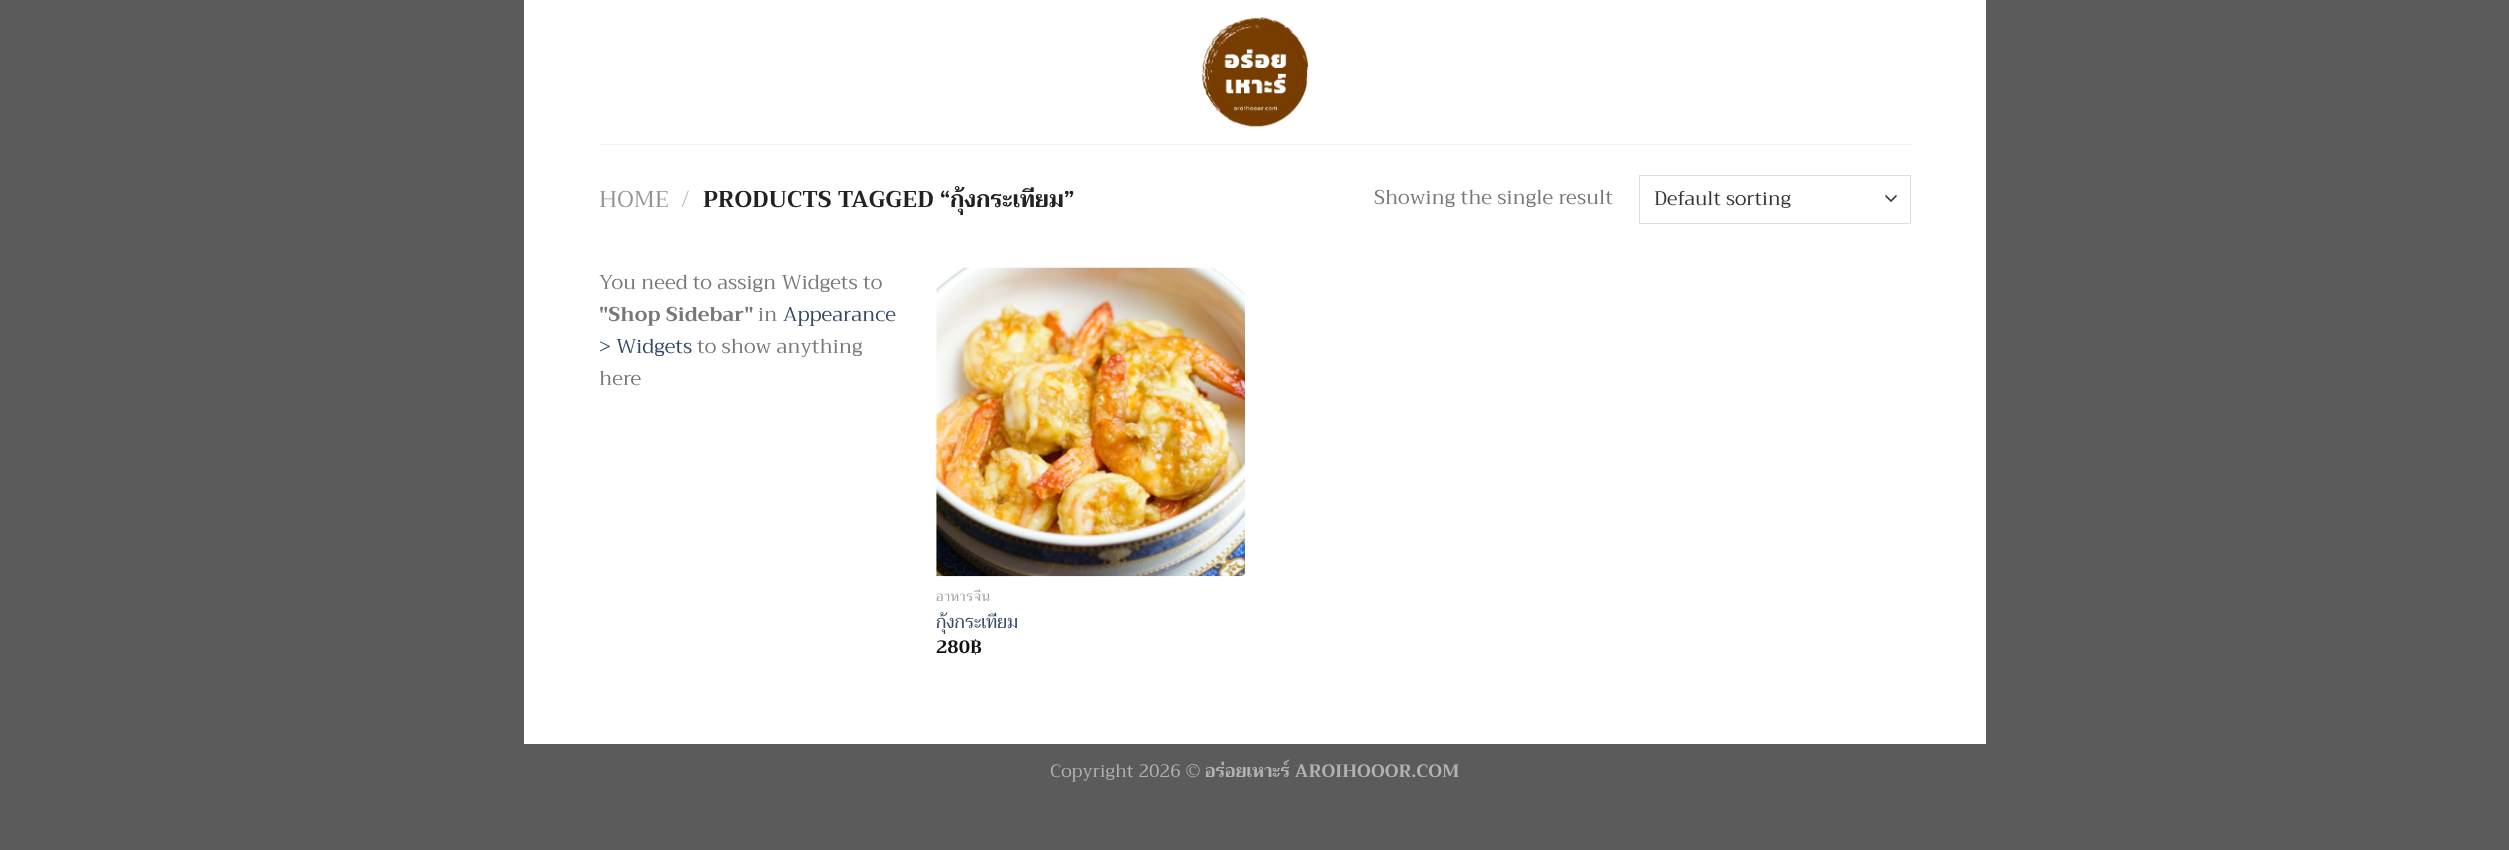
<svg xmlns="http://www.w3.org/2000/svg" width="2509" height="850">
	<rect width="100%" height="100%" fill="#5B5B5B" />
	<rect x="524" y="0" width="1462" height="744" fill="#FFFFFF" />
	<image x="1202" y="17" width="107" height="110" href="assets/img1.png" />
	<rect x="599" y="144" width="1312" height="1" fill="#F1F1F1" />
	<text x="599" y="207" font-family="Trirong" font-size="23" fill="#949494">HOME</text>
	<text x="681" y="207" font-family="Trirong" font-size="23" fill="#B2B2B2">/</text>
	<text x="703" y="207" font-family="Trirong" font-size="23" font-weight="700" fill="#222222">PRODUCTS TAGGED “กุ้งกระเทียม”</text>
	<text x="1374" y="204" font-family="Trirong" font-size="20" fill="#777777">Showing the single result</text>
	<path d="M1886 196L1891 201L1896 196" fill="none" stroke="#333333" stroke-width="1.7" stroke-linecap="round" stroke-linejoin="round" />
	<rect x="1639.5" y="175.5" width="271" height="48" fill="none" stroke="#DDDDDD" />
	<text x="1654" y="205" font-family="Trirong" font-size="19.5" fill="#333333">Default sorting</text>
	<text x="599" y="289" font-family="Trirong" font-size="20" fill="#777777">You need to assign Widgets to</text>
	<text x="599" y="321" font-family="Trirong" font-size="20" font-weight="700" fill="#777777">"Shop Sidebar"</text>
	<text x="758" y="321" font-family="Trirong" font-size="20" fill="#777777">in</text>
	<g font-family="Trirong" font-size="20" fill="#334862">
		<text x="783" y="321">Appearance</text>
		<text x="599" y="353">&gt; Widgets</text>
	</g>
	<g font-family="Trirong" font-size="20" fill="#777777">
		<text x="697" y="353">to show anything</text>
		<text x="599" y="385">here</text>
	</g>
	<image x="936" y="267" width="309" height="310" href="assets/img2.png" />
	<text x="936" y="601" font-family="Trirong" font-size="13.5" letter-spacing="0.75" fill="#A0A0A0">อาหารจีน</text>
	<text x="936" y="628" font-family="Trirong" font-size="18" fill="#334862">กุ้งกระเทียม</text>
	<text x="936" y="653" font-family="Trirong" font-size="18" font-weight="700" fill="#111111">280฿</text>
	<text x="1050" y="777" font-family="Trirong" font-size="18" fill="#B2B2B2">Copyright 2026 ©</text>
	<text x="1205" y="777" font-family="Trirong" font-size="18" font-weight="700" fill="#B2B2B2">อร่อยเหาะร์ AROIHOOOR.COM</text>
</svg>
